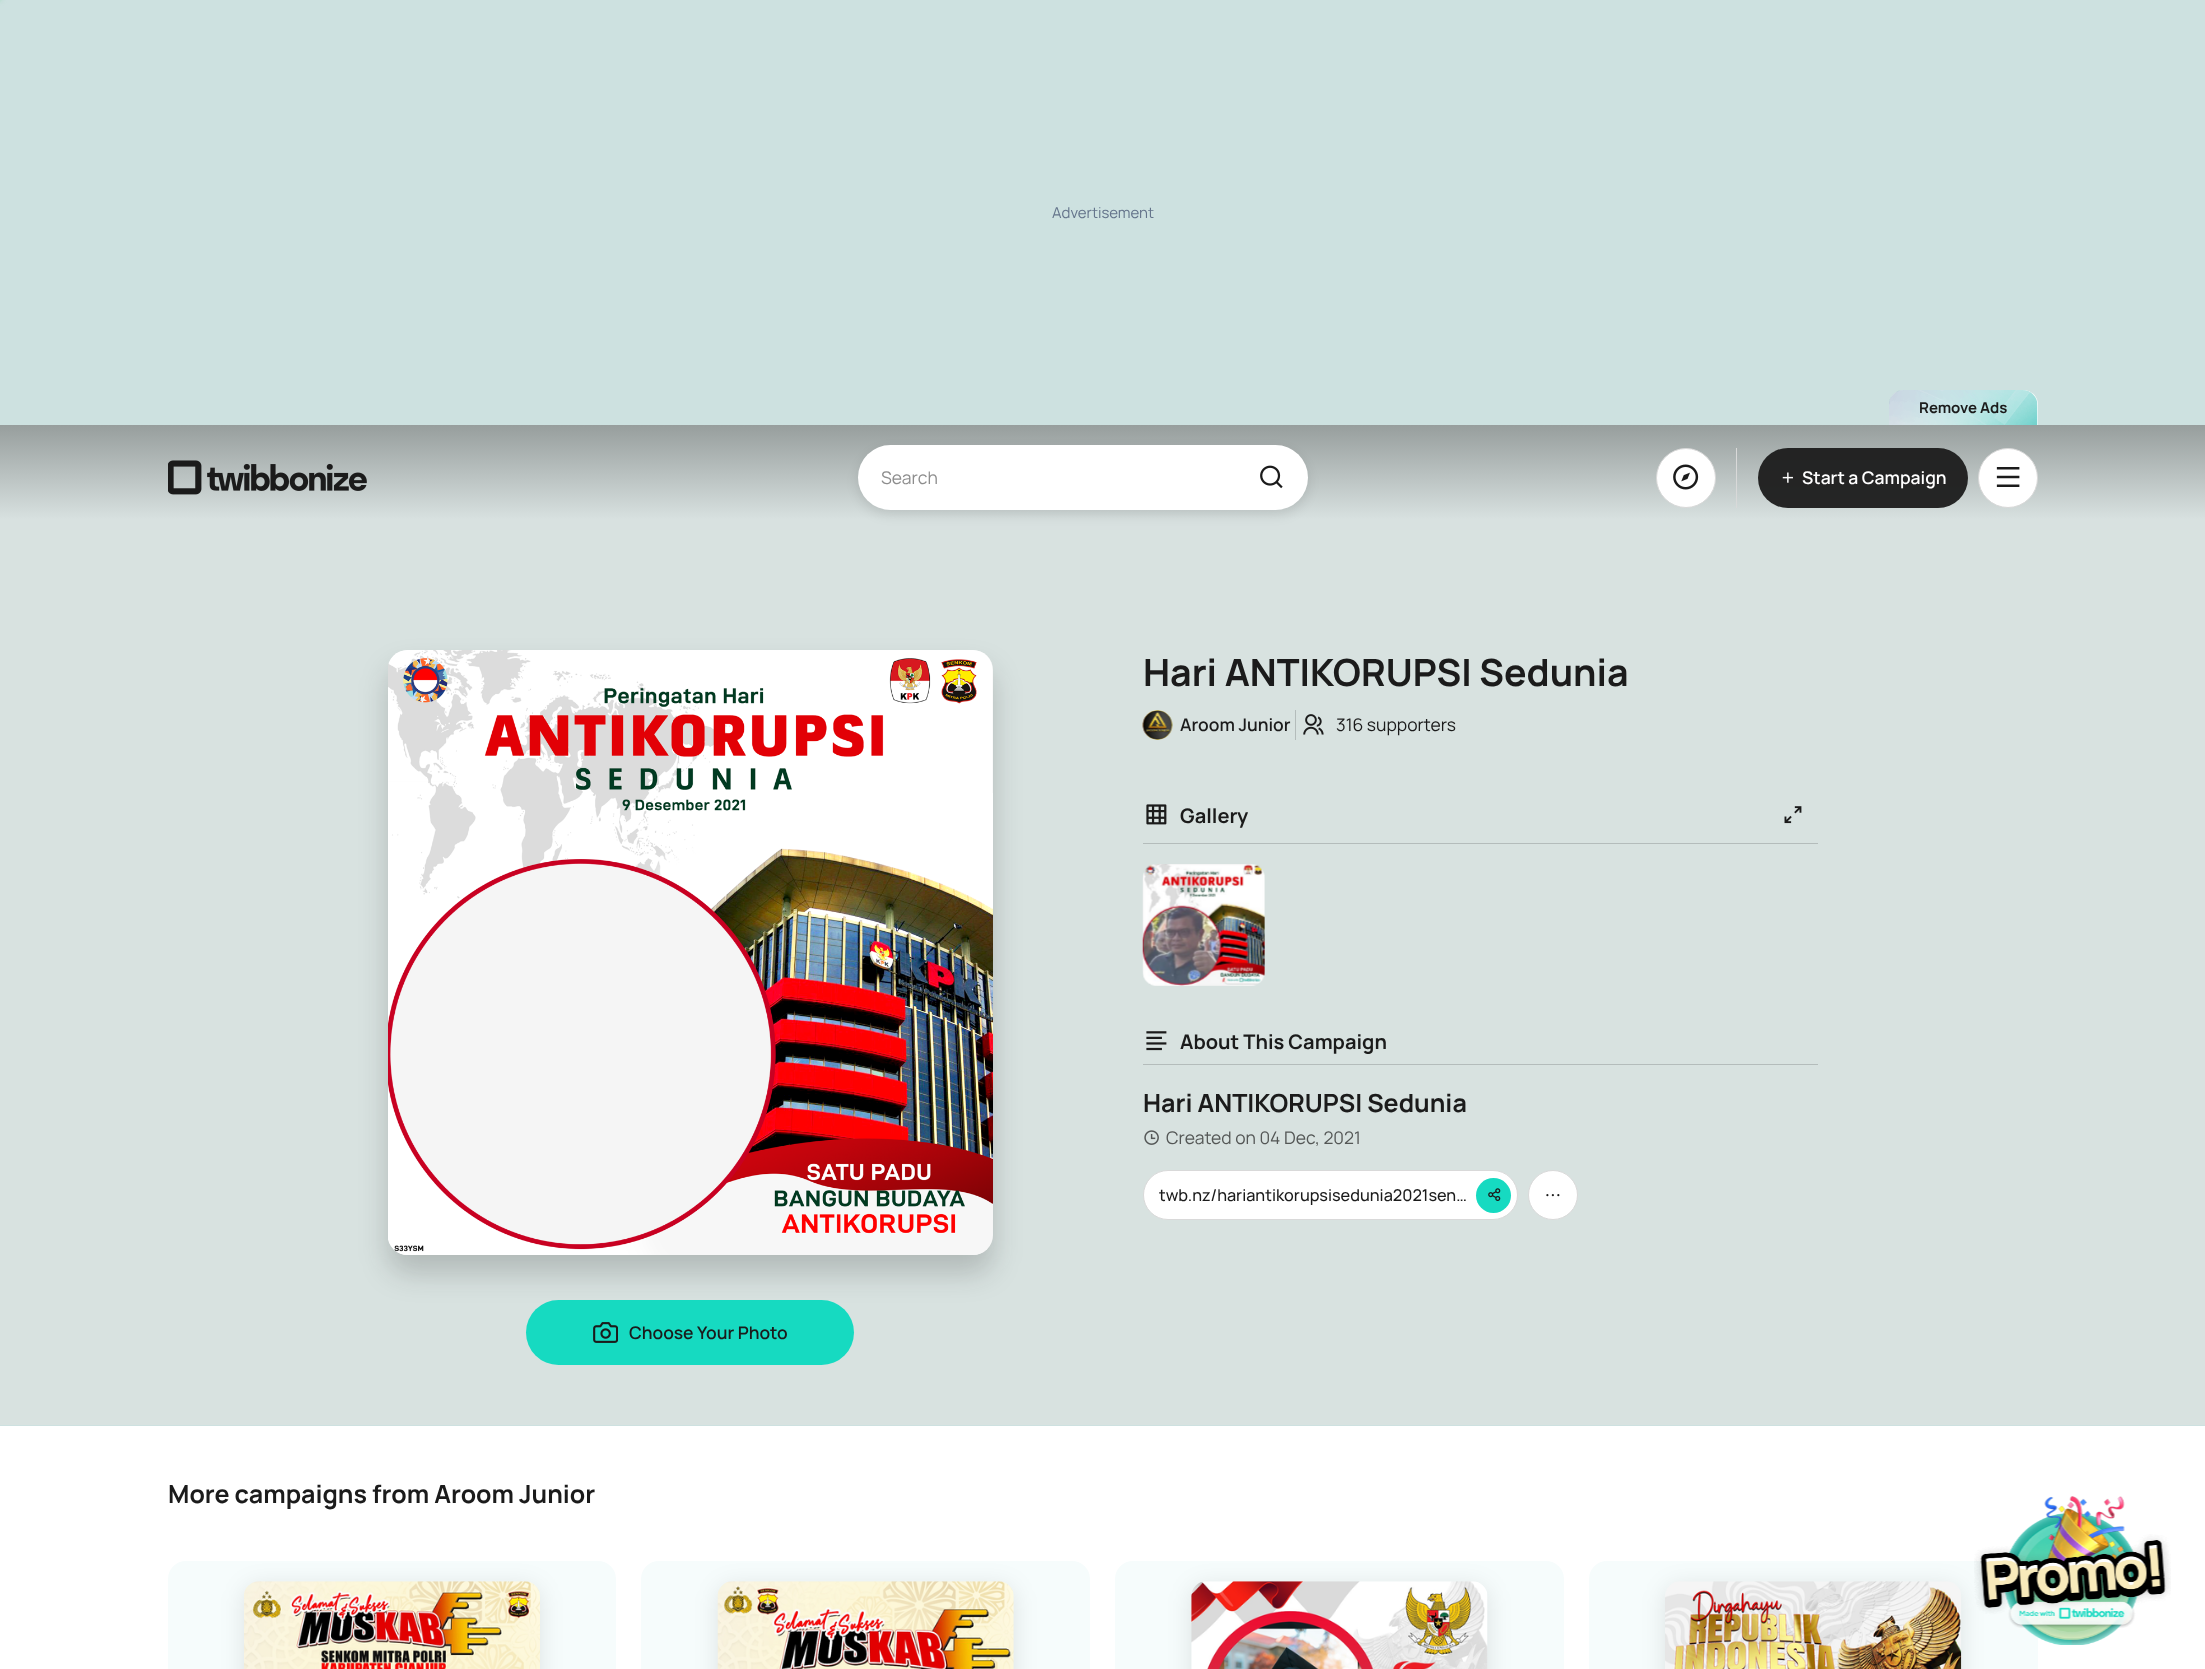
<svg xmlns="http://www.w3.org/2000/svg" width="2205" height="1669">
	<defs>
		<linearGradient id="g1" gradientUnits="userSpaceOnUse" x1="1103" y1="425" x2="1103" y2="530"><stop offset="0" stop-color="#979E9D" /><stop offset="0.9" stop-color="#D8E1E0" /><stop offset="1" stop-color="#D8E1E0" /></linearGradient>
	</defs>
	<rect width="100%" height="100%" fill="#CDE1E0" />
	<rect x="-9" y="-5" width="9" height="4" fill="#67D391" filter="blur(3px)" />
	<text x="1052" y="218" font-family="Manrope" font-size="15" fill="#64748B">Advertisement</text>
	<path d="M1904 390H2023C2031.5 390 2038 396.5 2038 405V425H1889V405C1889 396.5 1895.5 390 1904 390Z" fill="#FFFFFF" />
	<image x="1889" y="390" width="149" height="35" href="assets/img1.png" />
	<text x="1919" y="413" font-family="Manrope" font-size="15" font-weight="700" fill="#1B1B1B">Remove Ads</text>
	<rect x="0" y="425" width="2205" height="105" fill="url(#g1)" />
	<image x="168" y="460" width="199" height="35" href="assets/img2.png" />
	<rect x="0" y="530" width="2205" height="895" fill="#D8E2E0" />
	<rect x="858" y="450" width="450" height="65" rx="32.5" fill="#000000" fill-opacity="0.1" filter="blur(6px)" />
	<rect x="858" y="445" width="450" height="65" rx="32.5" fill="#FFFFFF" />
	<text x="881" y="484" font-family="Manrope" font-size="17.5" fill="#8D8D8D">Search</text>
	<image x="1260" y="465" width="23" height="24" href="assets/img3.png" />
	<rect x="1736" y="448" width="1" height="60" fill="#D9D9D9" />
	<circle cx="1686" cy="478" r="29.5" fill="#FFFFFF" stroke="#D9D9D9" />
	<image x="1673" y="464" width="26" height="26" href="assets/img4.png" />
	<rect x="1758" y="448" width="210" height="60" rx="30" fill="#1B1B1B" fill-opacity="0.95" />
	<image x="1782" y="472" width="11" height="11" href="assets/img5.png" />
	<text x="1802" y="484" font-family="Manrope" font-size="17.5" font-weight="600" fill="#FFFFFF">Start a Campaign</text>
	<circle cx="2008" cy="478" r="29.5" fill="#FFFFFF" stroke="#D9D9D9" />
	<image x="1996" y="467" width="24" height="20" href="assets/img6.png" />
	<text x="1143" y="686" font-family="Manrope" font-size="37.5" font-weight="700" fill="#1B1B1B">Hari ANTIKORUPSI Sedunia</text>
	<image x="1142" y="710" width="31" height="30" href="assets/img7.png" />
	<text x="1180" y="731" font-family="Manrope" font-size="17.5" font-weight="600" fill="#1B1B1B">Aroom Junior</text>
	<rect x="1295" y="710" width="1" height="30" fill="#B4BCBB" />
	<image x="1303" y="714" width="21" height="21" href="assets/img8.png" />
	<text x="1336" y="731" font-family="Manrope" font-size="17.5" fill="#1B1B1B">316 supporters</text>
	<rect x="1143" y="843" width="675" height="1" fill="#B4BCBB" />
	<image x="1146" y="804" width="21" height="21" href="assets/img9.png" />
	<text x="1180" y="823" font-family="Manrope" font-size="20" font-weight="700" fill="#1B1B1B">Gallery</text>
	<image x="1784" y="806" width="18" height="18" href="assets/img10.png" />
	<image x="1142" y="864" width="123" height="122" href="assets/img11.png" />
	<rect x="1143" y="1064" width="675" height="1" fill="#B4BCBB" />
	<image x="1146" y="1031" width="21" height="20" href="assets/img12.png" />
	<text x="1180" y="1049" font-family="Manrope" font-size="20" font-weight="700" fill="#1B1B1B">About This Campaign</text>
	<text x="1143" y="1112" font-family="Manrope" font-size="25" font-weight="700" fill="#1B1B1B">Hari ANTIKORUPSI Sedunia</text>
	<image x="1144" y="1130" width="15" height="15" href="assets/img13.png" />
	<text x="1166" y="1144" font-family="Manrope" font-size="17.5" fill="#545756">Created on 04 Dec, 2021</text>
	<rect x="1143.5" y="1170.5" width="374" height="49" rx="24.5" fill="#FFFFFF" stroke="#D9D9D9" />
	<text x="1159" y="1201" font-family="Manrope" font-size="16.25" font-weight="500" fill="#1B1B1B">twb.nz/hariantikorupsisedunia2021sen…</text>
	<circle cx="1493.5" cy="1195.5" r="17.5" fill="#16DAC1" />
	<image x="1488" y="1188" width="13" height="13" href="assets/img14.png" />
	<circle cx="1553" cy="1195" r="24.5" fill="#FFFFFF" stroke="#D9D9D9" />
	<image x="1546" y="1194" width="14" height="3" href="assets/img15.png" />
	<rect x="388" y="668" width="605" height="605" rx="20" fill="#1B1B1B" fill-opacity="0.2" filter="blur(14.5px)" />
	<rect x="388" y="650" width="605" height="605" rx="20" fill="#F5F5F5" />
	<image x="388" y="650" width="605" height="605" href="assets/img16.png" />
	<rect x="526" y="1300" width="328" height="65" rx="32.5" fill="#16DAC1" />
	<image x="593" y="1322" width="25" height="21" href="assets/img17.png" />
	<text x="629" y="1339" font-family="Manrope" font-size="17.5" font-weight="600" fill="#1B1B1B">Choose Your Photo</text>
	<rect x="0" y="1426" width="2205" height="243" fill="#FFFFFF" />
	<text x="168" y="1503" font-family="Manrope" font-size="25" font-weight="700" fill="#1B1B1B">More campaigns from Aroom Junior</text>
	<rect x="168" y="1561" width="448" height="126" rx="18" fill="#F6FCFC" />
	<rect x="244" y="1586" width="296" height="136" rx="15" fill="#000000" fill-opacity="0.1" filter="blur(12.5px)" />
	<image x="244" y="1581" width="296" height="88" href="assets/img18.png" />
	<rect x="641" y="1561" width="449" height="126" rx="18" fill="#F6FCFC" />
	<rect x="718" y="1586" width="296" height="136" rx="15" fill="#000000" fill-opacity="0.1" filter="blur(12.5px)" />
	<image x="717" y="1581" width="297" height="88" href="assets/img19.png" />
	<rect x="1115" y="1561" width="449" height="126" rx="18" fill="#F6FCFC" />
	<rect x="1191" y="1586" width="297" height="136" rx="15" fill="#000000" fill-opacity="0.1" filter="blur(12.5px)" />
	<image x="1191" y="1581" width="297" height="88" href="assets/img20.png" />
	<rect x="1589" y="1561" width="449" height="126" rx="18" fill="#F6FCFC" />
	<rect x="1665" y="1586" width="296" height="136" rx="15" fill="#000000" fill-opacity="0.1" filter="blur(12.5px)" />
	<image x="1665" y="1581" width="297" height="88" href="assets/img21.png" />
	<image x="1974" y="1496" width="197" height="149" href="assets/img22.png" />
</svg>
